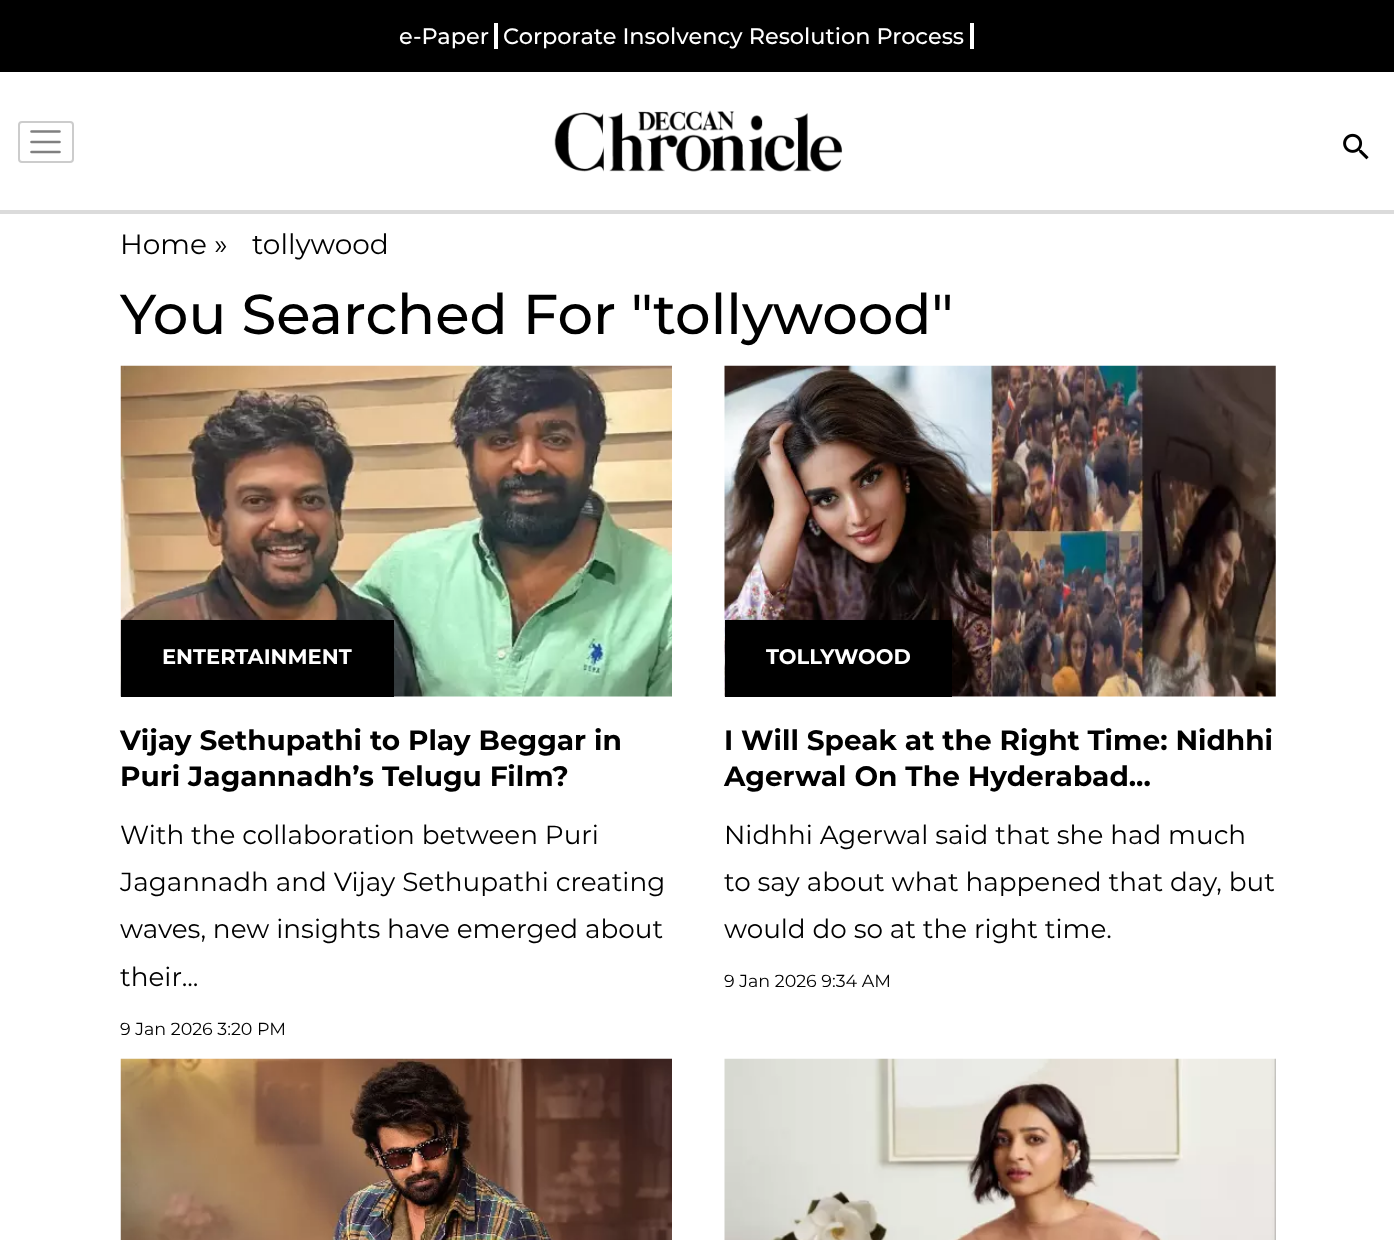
<svg xmlns="http://www.w3.org/2000/svg" width="1394" height="1240">
	<rect width="100%" height="100%" fill="#FFFFFF" />
	<rect x="0" y="0" width="1394" height="72" fill="#000000" />
	<text x="399" y="44" font-family="Montserrat" font-size="22.4" font-weight="500" fill="#FFFFFF">e-Paper</text>
	<rect x="494" y="23" width="4" height="26" fill="#FFFFFF" />
	<text x="503" y="44" font-family="Montserrat" font-size="22.4" font-weight="500" fill="#FFFFFF">Corporate Insolvency Resolution Process</text>
	<rect x="970" y="23" width="4" height="26" fill="#FFFFFF" />
	<rect x="0" y="210" width="1394" height="4" fill="#DBDBDB" />
	<path d="M31.5 131.5H59.5M31.5 142H59.5M31.5 152H59.5" fill="none" stroke="#808080" stroke-width="2.6" stroke-linecap="round" />
	<rect x="19" y="122" width="54" height="40" rx="3" fill="none" stroke="#CCCCCC" stroke-width="2" />
	<image x="554" y="110" width="289" height="62" href="assets/img1.png" />
	<image x="1343" y="133" width="26" height="27" href="assets/img2.png" />
	<g font-family="Montserrat" font-size="28" fill="#000000">
		<text x="120" y="254">Home »</text>
		<text x="252" y="254">tollywood</text>
	</g>
	<text x="120" y="334" font-family="Montserrat" font-size="56" font-weight="500" fill="#000000">You Searched For "tollywood"</text>
	<image x="120" y="365" width="552" height="332" href="assets/img3.png" />
	<rect x="121" y="620" width="273" height="77" fill="#000000" />
	<text x="162" y="664" font-family="Montserrat" font-size="21" font-weight="700" fill="#FFFFFF">ENTERTAINMENT</text>
	<g font-family="Montserrat" font-size="28" font-weight="700" fill="#000000">
		<text x="120" y="750">Vijay Sethupathi to Play Beggar in</text>
		<text x="120" y="786">Puri Jagannadh’s Telugu Film?</text>
	</g>
	<g font-family="Montserrat" font-size="26.25" fill="#000000">
		<text x="120" y="844">With the collaboration between Puri</text>
		<text x="120" y="891">Jagannadh and Vijay Sethupathi creating</text>
		<text x="120" y="938">waves, new insights have emerged about</text>
		<text x="120" y="986">their...</text>
	</g>
	<text x="120" y="1035" font-family="Montserrat" font-size="17.5" fill="#000000">9 Jan 2026 3:20 PM</text>
	<image x="724" y="365" width="552" height="332" href="assets/img4.png" />
	<rect x="725" y="620" width="227" height="77" fill="#000000" />
	<text x="766" y="664" font-family="Montserrat" font-size="21" font-weight="700" fill="#FFFFFF">TOLLYWOOD</text>
	<g font-family="Montserrat" font-size="28" font-weight="700" fill="#000000">
		<text x="724" y="750">I Will Speak at the Right Time: Nidhhi</text>
		<text x="724" y="786">Agerwal On The Hyderabad...</text>
	</g>
	<g font-family="Montserrat" font-size="26.25" fill="#000000">
		<text x="724" y="844">Nidhhi Agerwal said that she had much</text>
		<text x="724" y="891">to say about what happened that day, but</text>
		<text x="724" y="938">would do so at the right time.</text>
	</g>
	<text x="724" y="987" font-family="Montserrat" font-size="17.5" fill="#000000">9 Jan 2026 9:34 AM</text>
	<image x="120" y="1058" width="552" height="182" href="assets/img5.png" />
	<image x="724" y="1058" width="552" height="182" href="assets/img6.png" />
</svg>
